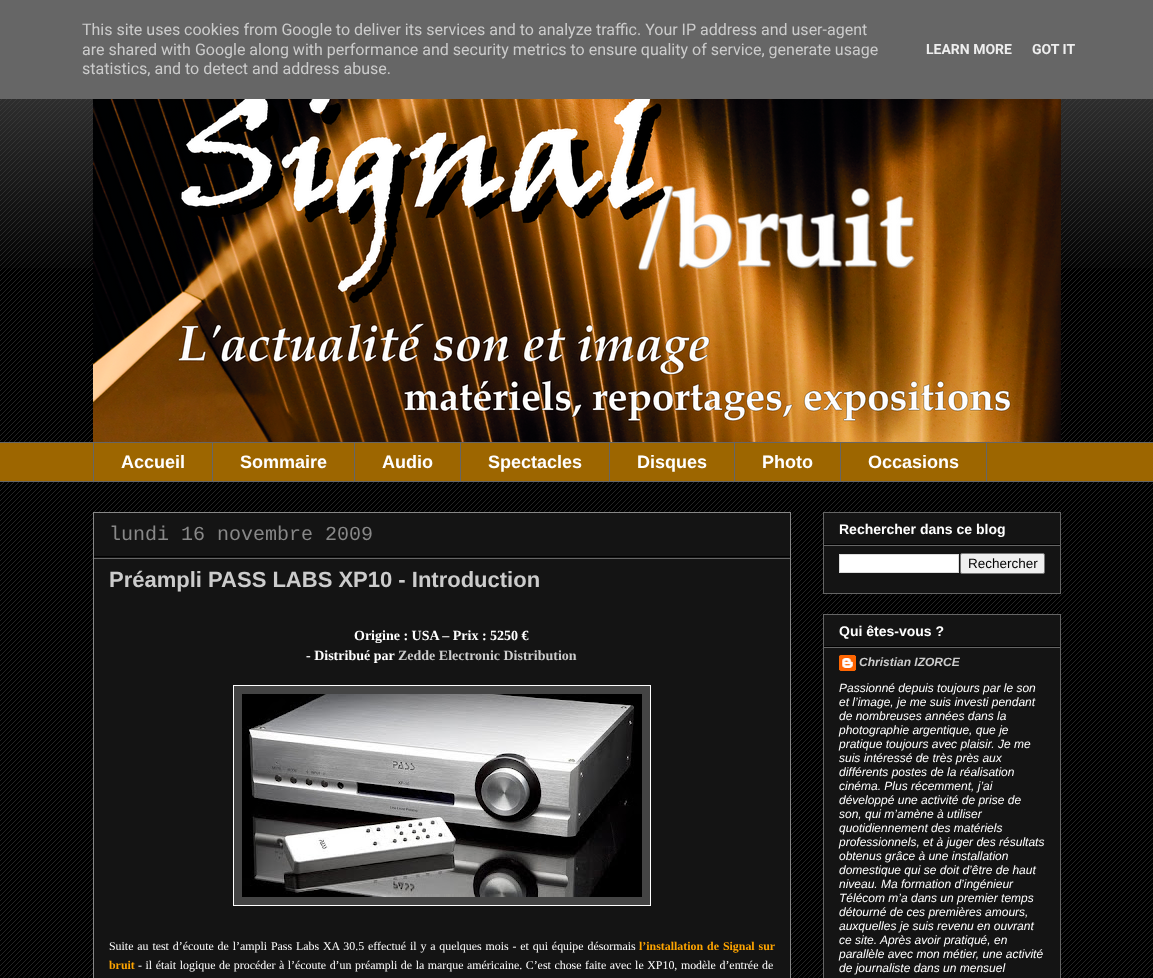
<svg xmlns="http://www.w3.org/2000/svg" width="1153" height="978">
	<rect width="100%" height="100%" fill="#000000" />
	<image x="0" y="99" width="1153" height="879" href="assets/img1.png" />
	<rect x="0" y="0" width="1153" height="99" fill="#666666" />
	<g font-family="Roboto" font-size="16" fill="#CCCCCC">
		<text x="82" y="35">This site uses cookies from Google to deliver its services and to analyze traffic. Your IP address and user-agent</text>
		<text x="82" y="55">are shared with Google along with performance and security metrics to ensure quality of service, generate usage</text>
		<text x="82" y="74">statistics, and to detect and address abuse.</text>
	</g>
	<g font-family="Roboto" font-size="14" font-weight="700" fill="#EEEEEE">
		<text x="926" y="54">LEARN MORE</text>
		<text x="1032" y="54">GOT IT</text>
	</g>
	<image x="0" y="99" width="1153" height="169" href="assets/img2.png" />
	<image x="93" y="99" width="968" height="343" href="assets/img3.png" />
	<rect x="0" y="443" width="1153" height="38" fill="#9D6600" />
	<rect x="0" y="442" width="1153" height="1" fill="#666666" />
	<rect x="93" y="442" width="1" height="40" fill="#666666" />
	<text x="121" y="468" font-family="Liberation Sans" font-size="18" font-weight="700" fill="#FFFFFF">Accueil</text>
	<rect x="212" y="442" width="1" height="40" fill="#666666" />
	<text x="240" y="468" font-family="Liberation Sans" font-size="18" font-weight="700" fill="#FFFFFF">Sommaire</text>
	<rect x="354" y="442" width="1" height="40" fill="#666666" />
	<text x="382" y="468" font-family="Liberation Sans" font-size="18" font-weight="700" fill="#FFFFFF">Audio</text>
	<rect x="460" y="442" width="1" height="40" fill="#666666" />
	<text x="488" y="468" font-family="Liberation Sans" font-size="18" font-weight="700" fill="#FFFFFF">Spectacles</text>
	<rect x="609" y="442" width="1" height="40" fill="#666666" />
	<text x="637" y="468" font-family="Liberation Sans" font-size="18" font-weight="700" fill="#FFFFFF">Disques</text>
	<rect x="734" y="442" width="1" height="40" fill="#666666" />
	<text x="762" y="468" font-family="Liberation Sans" font-size="18" font-weight="700" fill="#FFFFFF">Photo</text>
	<rect x="840.5" y="442.5" width="146" height="39" fill="none" stroke="#666666" />
	<text x="868" y="468" font-family="Liberation Sans" font-size="18" font-weight="700" fill="#FFFFFF">Occasions</text>
	<rect x="0" y="481" width="1153" height="1" fill="#666666" />
	<rect x="93.5" y="512.5" width="697" height="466" fill="#141414" stroke="#888888" />
	<rect x="94" y="556" width="696" height="1" fill="#000000" />
	<text x="109" y="540" font-family="Liberation Mono" font-size="20" fill="#888888">lundi 16 novembre 2009</text>
	<rect x="94" y="558" width="696" height="1" fill="#666666" />
	<text x="109" y="587" font-family="Liberation Sans" font-size="22" font-weight="700" fill="#CCCCCC">Préampli PASS LABS XP10 - Introduction</text>
	<g font-family="Liberation Serif" font-size="14" font-weight="700" fill="#FFFFFF">
		<text x="354" y="640">Origine : USA – Prix : 5250 €</text>
		<text x="306" y="660">- Distribué par</text>
	</g>
	<text x="398" y="660" font-family="Liberation Serif" font-size="14" font-weight="700" fill="#CCCCCC">Zedde Electronic Distribution</text>
	<rect x="233.5" y="685.5" width="417" height="220" fill="#444444" stroke="#FFFFFF" />
	<image x="242" y="694" width="400" height="203" href="assets/img4.png" />
	<text x="109" y="950" word-spacing="0.9" font-family="Liberation Serif" font-size="11.9" fill="#FFFFFF">Suite au test d’écoute de l’ampli Pass Labs XA 30.5 effectué il y a quelques mois - et qui équipe désormais</text>
	<g font-family="Liberation Serif" font-size="11.9" font-weight="700" fill="#FFA500">
		<text x="639" y="950" word-spacing="1">l’installation de Signal sur</text>
		<text x="109" y="969">bruit</text>
	</g>
	<text x="138" y="969" word-spacing="0.6" font-family="Liberation Serif" font-size="11.9" fill="#FFFFFF">- il était logique de procéder à l’écoute d’un préampli de la marque américaine. C’est chose faite avec le XP10, modèle d’entrée de</text>
	<rect x="823.5" y="512.5" width="237" height="81" fill="#141414" stroke="#666666" />
	<rect x="824" y="544" width="236" height="1" fill="#000000" />
	<text x="839" y="534" font-family="Liberation Sans" font-size="14" font-weight="700" fill="#FFFFFF">Rechercher dans ce blog</text>
	<rect x="824" y="545" width="236" height="1" fill="#666666" />
	<rect x="839.5" y="554.5" width="119" height="18" fill="#FFFFFF" stroke="#DDDDDD" />
	<rect x="960.5" y="553.5" width="84" height="20" rx="1.5" fill="#EFEFEF" stroke="#767676" />
	<text x="968" y="568" font-family="Liberation Sans" font-size="13.5" fill="#000000">Rechercher</text>
	<rect x="823.5" y="614.5" width="237" height="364" fill="#141414" stroke="#666666" />
	<rect x="824" y="646" width="236" height="1" fill="#000000" />
	<text x="839" y="636" font-family="Liberation Sans" font-size="14" font-weight="700" fill="#FFFFFF">Qui êtes-vous ?</text>
	<rect x="824" y="647" width="236" height="1" fill="#666666" />
	<image x="839" y="655" width="17" height="16" href="assets/img5.png" />
	<text x="859" y="666" font-family="Liberation Sans" font-size="12" font-weight="700" font-style="italic" fill="#CCCCCC">Christian IZORCE</text>
	<g font-family="Liberation Sans" font-size="12" font-style="italic" fill="#FFFFFF">
		<text x="839" y="692">Passionné depuis toujours par le son</text>
		<text x="839" y="706">et l’image, je me suis investi pendant</text>
		<text x="839" y="720">de nombreuses années dans la</text>
		<text x="839" y="734">photographie argentique, que je</text>
		<text x="839" y="748">pratique toujours avec plaisir. Je me</text>
		<text x="839" y="762">suis intéressé de très près aux</text>
		<text x="839" y="776">différents postes de la réalisation</text>
		<text x="839" y="790">cinéma. Plus récemment, j’ai</text>
		<text x="839" y="804">développé une activité de prise de</text>
		<text x="839" y="818">son, qui m’amène à utiliser</text>
		<text x="839" y="832">quotidiennement des matériels</text>
		<text x="839" y="846">professionnels, et à juger des résultats</text>
		<text x="839" y="860">obtenus grâce à une installation</text>
		<text x="839" y="874">domestique qui se doit d’être de haut</text>
		<text x="839" y="888">niveau. Ma formation d’ingénieur</text>
		<text x="839" y="902">Télécom m’a dans un premier temps</text>
		<text x="839" y="916">détourné de ces premières amours,</text>
		<text x="839" y="930">auxquelles je suis revenu en ouvrant</text>
		<text x="839" y="944">ce site. Après avoir pratiqué, en</text>
		<text x="839" y="958">parallèle avec mon métier, une activité</text>
		<text x="839" y="972">de journaliste dans un mensuel</text>
	</g>
</svg>
